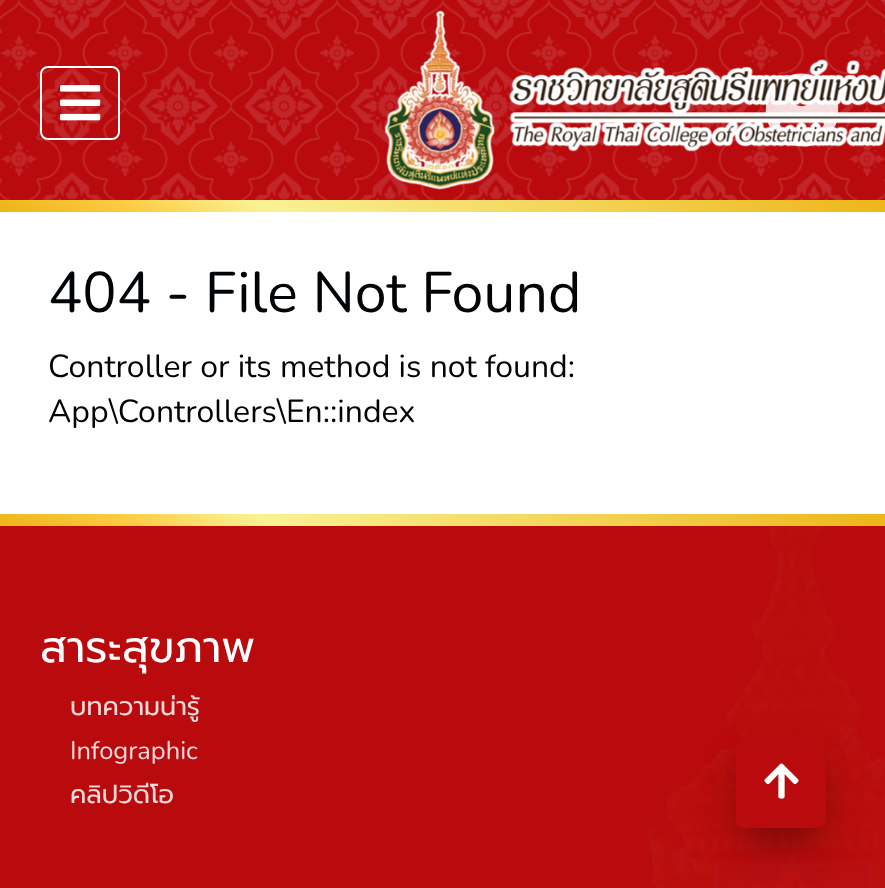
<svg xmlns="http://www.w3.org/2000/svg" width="885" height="888">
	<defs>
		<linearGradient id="g1" gradientUnits="userSpaceOnUse" x1="330" y1="402" x2="556" y2="10"><stop offset="0" stop-color="#EDB518" /><stop offset="0.15" stop-color="#FDCB43" /><stop offset="0.3" stop-color="#F9F295" /><stop offset="1" stop-color="#EDB518" /></linearGradient>
		<linearGradient id="g2" gradientUnits="userSpaceOnUse" x1="330" y1="716" x2="556" y2="324"><stop offset="0" stop-color="#EDB518" /><stop offset="0.15" stop-color="#FDCB43" /><stop offset="0.3" stop-color="#F9F295" /><stop offset="1" stop-color="#EDB518" /></linearGradient>
	</defs>
	<rect width="100%" height="100%" fill="#FFFFFF" />
	<rect x="0" y="0" width="885" height="200" fill="#B90A0D" />
	<image x="0" y="0" width="885" height="200" href="assets/img1.png" />
	<path d="M790 133C801 139 817 136 824 125C824 117 808 113 802 113C796 113 780 116 780 125C782 128 785 131 790 133ZM810 88C800 77 784 93 794 103C804 113 820 98 810 88ZM776 84C800 60 842 80 838 114C838 122 834 130 828 136C804 160 762 140 766 106C766 98 770 90 776 84Z" fill="#FFFFFF" fill-opacity="0.85" />
	<image x="384" y="10" width="501" height="180" href="assets/img2.png" />
	<rect x="0" y="200" width="885" height="12" fill="url(#g1)" />
	<rect x="41" y="67" width="78" height="72" rx="7" fill="none" stroke="#FFFFFF" stroke-width="2" />
	<image x="60" y="85" width="41" height="36" href="assets/img3.png" />
	<text x="48" y="312" font-family="Nunito" font-size="57.25" fill="#000407">404 - File Not Found</text>
	<g font-family="Nunito" font-size="32" fill="#000407">
		<text x="48" y="377">Controller or its method is not found:</text>
		<text x="48" y="422">App\Controllers\En::index</text>
	</g>
	<rect x="0" y="526" width="885" height="362" fill="#B90A0D" />
	<image x="648" y="526" width="237" height="362" href="assets/img4.png" />
	<rect x="0" y="514" width="885" height="12" fill="url(#g2)" />
	<text x="40" y="662" font-family="Prompt" font-size="43.5" fill="#FFFFFF">สาระสุขภาพ</text>
	<text x="70" y="715" font-family="Prompt" font-size="25.5" fill="#F5DADB">บทความน่ารู้</text>
	<text x="70" y="759" font-family="Nunito" font-size="25.5" fill="#F5DADB">Infographic</text>
	<text x="70" y="803" font-family="Prompt" font-size="25.5" fill="#F5DADB">คลิปวิดีโอ</text>
	<rect x="744" y="766" width="74" height="74" fill="#000000" fill-opacity="0.4" filter="blur(20px)" />
	<rect x="736" y="738" width="90" height="90" rx="8" fill="#B90A0D" />
	<image x="764" y="763" width="35" height="36" href="assets/img5.png" />
</svg>
